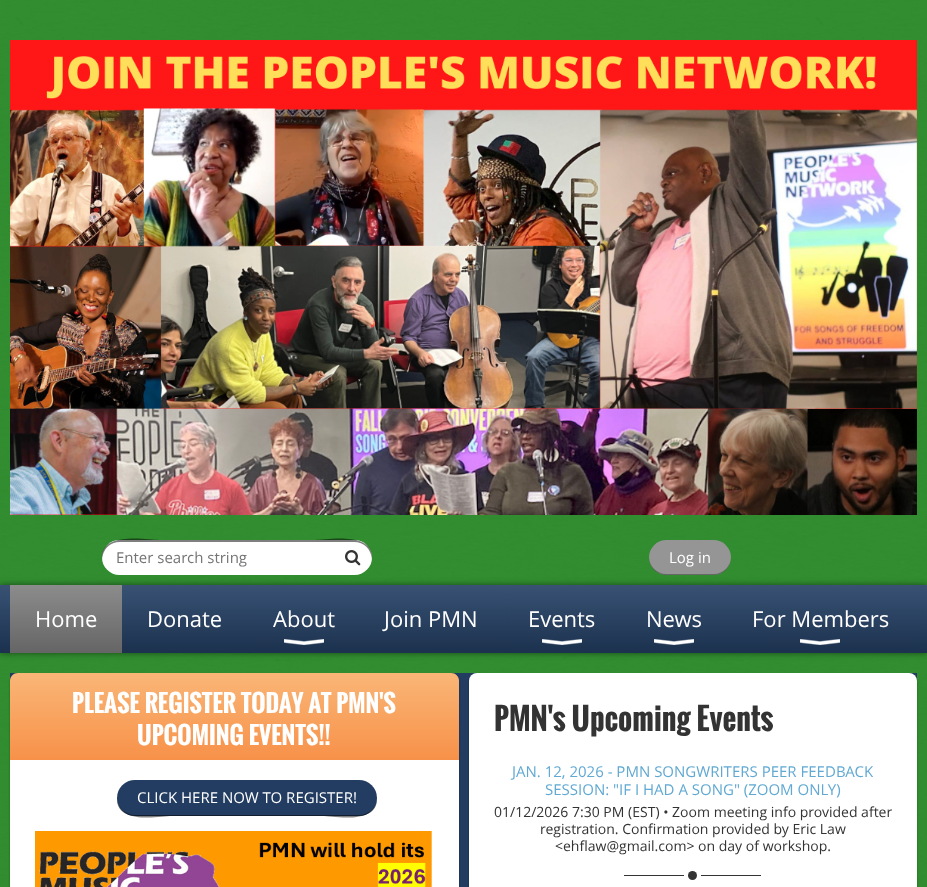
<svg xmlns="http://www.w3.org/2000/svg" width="927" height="887">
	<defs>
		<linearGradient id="g1" gradientUnits="userSpaceOnUse" x1="464" y1="585" x2="464" y2="653"><stop offset="0" stop-color="#395274" /><stop offset="1" stop-color="#1B314E" /></linearGradient>
		<linearGradient id="g2" gradientUnits="userSpaceOnUse" x1="66" y1="585" x2="66" y2="653"><stop offset="0" stop-color="#8C8C8C" /><stop offset="1" stop-color="#656565" /></linearGradient>
		<linearGradient id="g3" gradientUnits="userSpaceOnUse" x1="235" y1="673" x2="235" y2="760"><stop offset="0" stop-color="#FAB677" /><stop offset="1" stop-color="#F79149" /></linearGradient>
	</defs>
	<rect width="100%" height="100%" fill="#FFFFFF" />
	<image x="0" y="0" width="927" height="887" href="assets/img1.png" />
	<image x="10" y="40" width="907" height="475" href="assets/img2.png" />
	<rect x="102" y="540" width="270" height="35" rx="17.5" fill="#FFFFFF" />
	<path d="M120 542H354C364 542 371 549 372 559C374 531 326 540 315 540H159C148 540 100 531 102 559C103 549 110 542 120 542Z" fill="#000000" fill-opacity="0.5" />
	<text x="116" y="563" font-family="Open Sans" font-size="15" fill="#757575">Enter search string</text>
	<image x="345" y="550" width="16" height="16" href="assets/img3.png" />
	<rect x="649" y="540" width="82" height="35" rx="17.5" fill="#959595" />
	<path d="M649 557V558C649 567 657 575 666 575H714C723 575 731 567 731 558V557C731 566 723 574 714 574H666C657 574 649 566 649 557Z" fill="#000000" fill-opacity="0.3" />
	<text x="669" y="563" font-family="Open Sans" font-size="15" fill="#FFFFFF">Log in</text>
	<rect x="0" y="585" width="927" height="68" fill="#000000" fill-opacity="0.5" filter="blur(3px)" />
	<rect x="0" y="585" width="927" height="68" fill="url(#g1)" />
	<rect x="10" y="585" width="112" height="68" fill="url(#g2)" />
	<g font-family="Open Sans" font-size="22" fill="#FFFFFF">
		<text x="35" y="627">Home</text>
		<text x="147" y="627">Donate</text>
		<text x="273" y="627">About</text>
	</g>
	<image x="284" y="639" width="40" height="6" href="assets/img4.png" />
	<g font-family="Open Sans" font-size="22" fill="#FFFFFF">
		<text x="384" y="627">Join PMN</text>
		<text x="528" y="627">Events</text>
	</g>
	<image x="542" y="639" width="40" height="6" href="assets/img4.png" />
	<text x="646" y="627" font-family="Open Sans" font-size="22" fill="#FFFFFF">News</text>
	<image x="654" y="639" width="40" height="6" href="assets/img4.png" />
	<text x="752" y="627" font-family="Open Sans" font-size="22" fill="#FFFFFF">For Members</text>
	<image x="800" y="639" width="40" height="6" href="assets/img4.png" />
	<rect x="10" y="673" width="907" height="214" fill="#223D61" />
	<rect x="10" y="675" width="449" height="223" rx="8" fill="#000000" fill-opacity="0.3" filter="blur(1px)" />
	<path d="M18 673H451C455.5 673 459 676.5 459 681V760H10V681C10 676.5 13.5 673 18 673Z" fill="url(#g3)" />
	<g font-family="Oswald" font-size="24" font-weight="700" fill="#FFFFFF">
		<text x="72" y="713">PLEASE REGISTER TODAY AT PMN'S</text>
		<text x="137" y="745">UPCOMING EVENTS!!</text>
	</g>
	<rect x="10" y="760" width="449" height="127" fill="#FFFFFF" />
	<rect x="117" y="780" width="260" height="36" rx="18" fill="#223D61" />
	<path d="M377 798C378 825 334 816 322 816H172C160 816 116 825 117 798C117 807 125 815 135 815H359C369 815 377 807 377 798Z" fill="#000000" fill-opacity="0.5" />
	<text x="137" y="803" font-family="Open Sans" font-size="15" fill="#FFFFFF">CLICK HERE NOW TO REGISTER!</text>
	<image x="35" y="831" width="397" height="56" href="assets/img5.png" />
	<rect x="469" y="675" width="448" height="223" rx="8" fill="#000000" fill-opacity="0.3" filter="blur(1px)" />
	<rect x="469" y="673" width="448" height="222" rx="8" fill="#FFFFFF" />
	<text x="494" y="731" font-family="Oswald" font-size="30" font-weight="700" fill="#333333">PMN's Upcoming Events</text>
	<g font-family="Open Sans" font-size="15" fill="#61A9D2">
		<text x="512" y="777">JAN. 12, 2026 - PMN SONGWRITERS PEER FEEDBACK</text>
		<text x="545" y="795">SESSION: "IF I HAD A SONG" (ZOOM ONLY)</text>
	</g>
	<g font-family="Open Sans" font-size="14" fill="#333333">
		<text x="494" y="817">01/12/2026 7:30 PM (EST) • Zoom meeting info provided after</text>
		<text x="540" y="834">registration. Confirmation provided by Eric Law</text>
		<text x="555" y="851">&lt;ehflaw@gmail.com&gt; on day of workshop.</text>
	</g>
	<circle cx="692.5" cy="875.5" r="4.5" fill="#333333" />
	<rect x="701" y="875" width="60" height="1" fill="#333333" />
	<rect x="624" y="875" width="60" height="1" fill="#333333" />
</svg>
